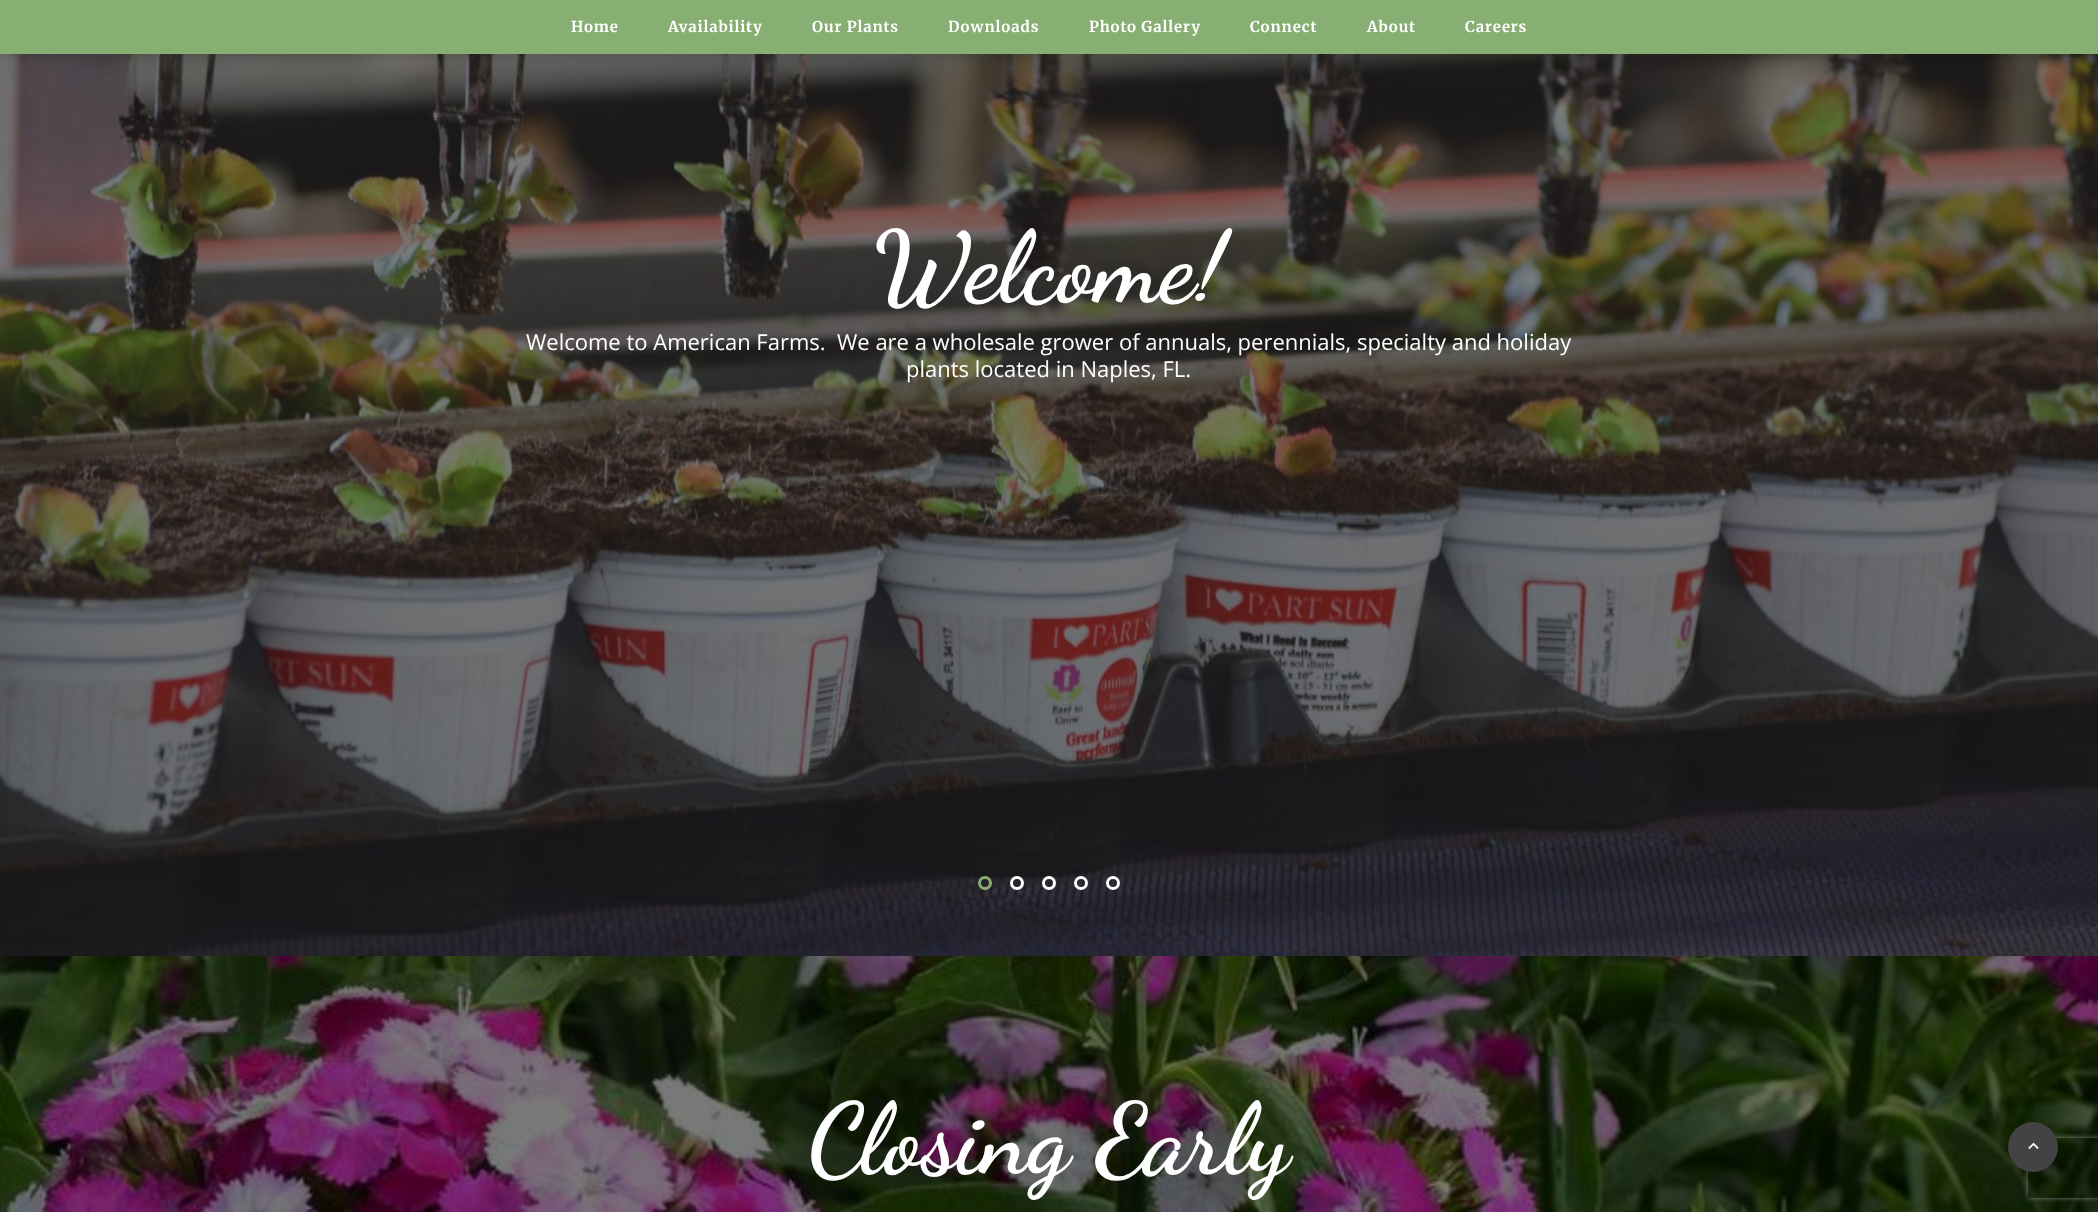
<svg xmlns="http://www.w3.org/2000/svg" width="2098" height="1212">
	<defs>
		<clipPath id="clip1"><path d="M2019 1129H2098V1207H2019ZM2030 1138H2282C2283 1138 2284 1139 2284 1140V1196C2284 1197 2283 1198 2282 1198H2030C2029 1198 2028 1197 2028 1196V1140C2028 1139 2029 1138 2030 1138Z" clip-rule="evenodd" /></clipPath>
	</defs>
	<rect width="100%" height="100%" fill="#FFFFFF" />
	<image x="0" y="54" width="2098" height="902" href="assets/img1.png" />
	<rect x="0" y="3" width="2098" height="54" fill="#000000" fill-opacity="0.15" filter="blur(5.5px)" />
	<rect x="0" y="0" width="2098" height="54" fill="#87AE73" />
	<g font-family="Merriweather" font-size="15" font-weight="700" letter-spacing="0.9" fill="#FFFFFF">
		<text x="571" y="32">Home</text>
		<text x="668" y="32">Availability</text>
		<text x="812" y="32">Our Plants</text>
		<text x="948" y="32">Downloads</text>
		<text x="1089" y="32">Photo Gallery</text>
		<text x="1250" y="32">Connect</text>
		<text x="1367" y="32">About</text>
		<text x="1465" y="32">Careers</text>
	</g>
	<text x="873" y="300" font-family="Dancing Script" font-size="100" font-weight="700" fill="#FFFFFF">Welcome!</text>
	<g font-family="Open Sans" font-size="22" fill="#FFFFFF">
		<text x="526" y="350" xml:space="preserve">Welcome to American Farms.  We are a wholesale grower of annuals, perennials, specialty and holiday</text>
		<text x="906" y="377">plants located in Naples, FL.</text>
	</g>
	<circle cx="985" cy="883" r="5.5" fill="none" stroke="#87AE73" stroke-width="3" />
	<circle cx="1017" cy="883" r="5.5" fill="none" stroke="#FFFFFF" stroke-width="3" />
	<circle cx="1049" cy="883" r="5.5" fill="none" stroke="#FFFFFF" stroke-width="3" />
	<circle cx="1081" cy="883" r="5.5" fill="none" stroke="#FFFFFF" stroke-width="3" />
	<circle cx="1113" cy="883" r="5.5" fill="none" stroke="#FFFFFF" stroke-width="3" />
	<image x="0" y="956" width="2098" height="256" href="assets/img2.png" />
	<rect x="0" y="956" width="2098" height="256" fill="#000000" fill-opacity="0.52" />
	<text x="808" y="1172" font-family="Dancing Script" font-size="100" font-weight="700" fill="#FFFFFF">Closing Early</text>
	<rect x="2008" y="1123" width="50" height="50" rx="25" fill="#000000" fill-opacity="0.15" filter="blur(5px)" />
	<g clip-path="url(#clip1)">
		<rect x="2028" y="1138" width="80" height="60" rx="2" fill="#808080" filter="blur(2.5px)" />
	</g>
	<circle cx="2033" cy="1147" r="25" fill="#434345" />
	<image x="2028" y="1142" width="11" height="7" href="assets/img3.png" />
</svg>
